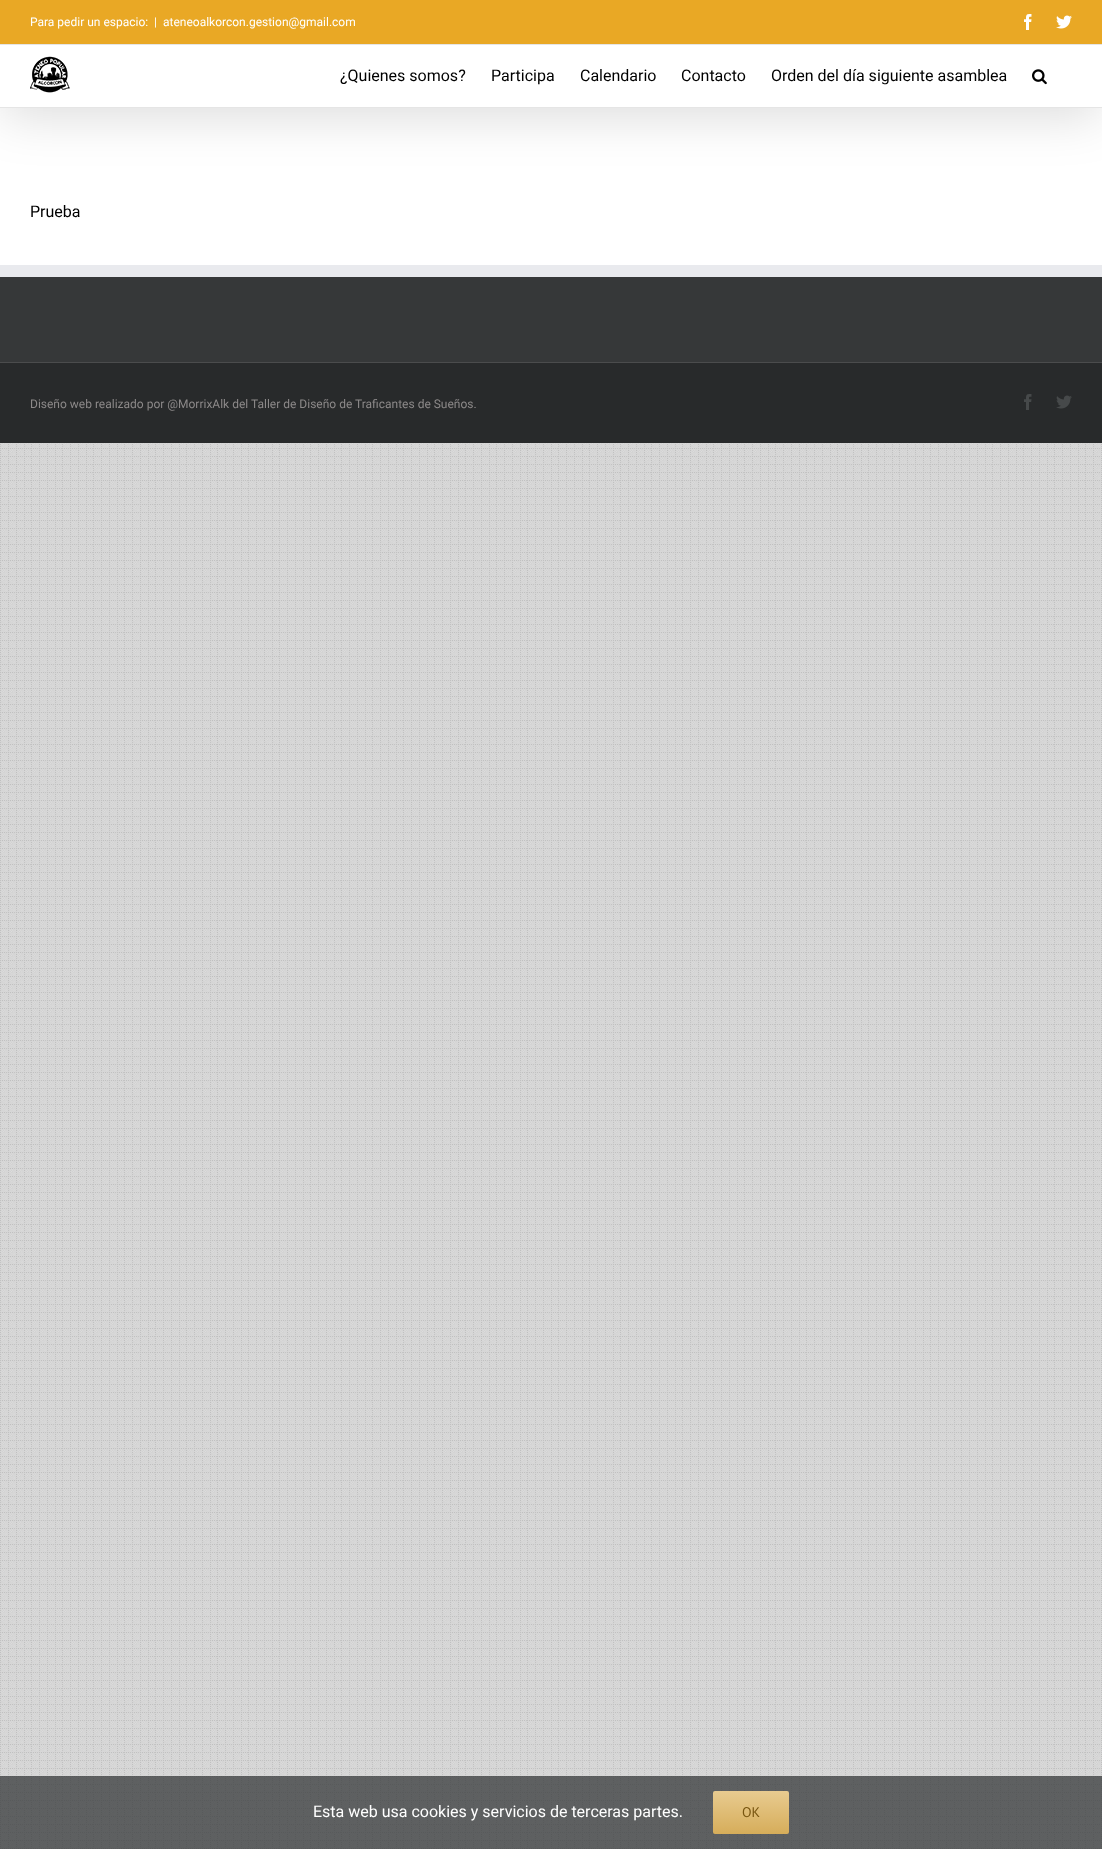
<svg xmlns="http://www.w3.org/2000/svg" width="1102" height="1849">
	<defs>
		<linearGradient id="g1" gradientUnits="userSpaceOnUse" x1="751" y1="1791" x2="751" y2="1834"><stop offset="0" stop-color="#E8CB90" /><stop offset="1" stop-color="#D6AD5A" /></linearGradient>
	</defs>
	<rect width="100%" height="100%" fill="#FFFFFF" />
	<image x="0" y="443" width="1102" height="1406" href="assets/img1.png" />
	<rect x="2" y="12" width="1098" height="104" fill="#000000" fill-opacity="0.14" filter="blur(25px)" />
	<rect x="0" y="0" width="1102" height="44" fill="#E9A825" />
	<rect x="0" y="44" width="1102" height="1" fill="#E5E5E5" />
	<g font-family="Roboto" font-size="12" fill="#FFFFFF">
		<text x="30" y="26">Para pedir un espacio:</text>
		<text x="154" y="26">|</text>
		<text x="163" y="26">ateneoalkorcon.gestion@gmail.com</text>
	</g>
	<image x="1024" y="14" width="8" height="16" href="assets/img2.png" />
	<image x="1056" y="15" width="16" height="14" href="assets/img3.png" />
	<rect x="0" y="45" width="1102" height="62" fill="#FFFFFF" />
	<rect x="0" y="107" width="1102" height="1" fill="#E5E5E5" />
	<image x="30" y="56" width="40" height="37" href="assets/img4.png" />
	<g font-family="Roboto" font-size="16" fill="#000000">
		<text x="340" y="81">¿Quienes somos?</text>
		<text x="491" y="81">Participa</text>
		<text x="580" y="81">Calendario</text>
		<text x="681" y="81">Contacto</text>
		<text x="771" y="81">Orden del día siguiente asamblea</text>
	</g>
	<image x="1032" y="69" width="15" height="16" href="assets/img5.png" />
	<text x="30" y="217" font-family="Roboto" font-size="16" fill="#000000">Prueba</text>
	<rect x="0" y="277" width="1102" height="85" fill="#363839" />
	<rect x="0" y="265" width="1102" height="12" fill="#E9EAEE" />
	<rect x="0" y="363" width="1102" height="80" fill="#282A2B" />
	<rect x="0" y="362" width="1102" height="1" fill="#4B4C4D" />
	<text x="30" y="408" font-family="Roboto" font-size="12" fill="#8C8989">Diseño web realizado por @MorrixAlk del Taller de Diseño de Traficantes de Sueños.</text>
	<image x="1024" y="394" width="8" height="16" href="assets/img6.png" />
	<image x="1056" y="395" width="16" height="14" href="assets/img7.png" />
	<rect x="0" y="1776" width="1102" height="73" fill="#363839" fill-opacity="0.75" />
	<text x="313" y="1817" font-family="Roboto" font-size="16" fill="#FFFFFF">Esta web usa cookies y servicios de terceras partes.</text>
	<rect x="713" y="1791" width="76" height="43" rx="2" fill="url(#g1)" />
	<text x="742" y="1817" font-family="PT Sans" font-size="14" fill="#785510">OK</text>
</svg>
